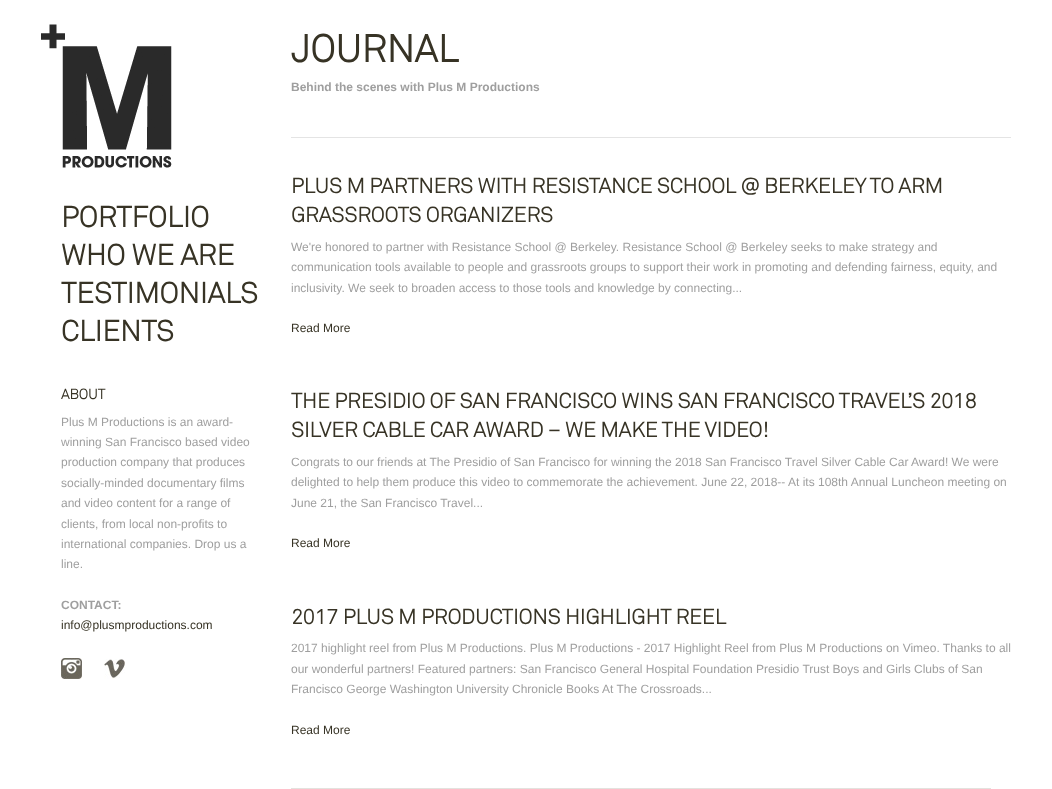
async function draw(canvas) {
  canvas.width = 1052
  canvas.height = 789
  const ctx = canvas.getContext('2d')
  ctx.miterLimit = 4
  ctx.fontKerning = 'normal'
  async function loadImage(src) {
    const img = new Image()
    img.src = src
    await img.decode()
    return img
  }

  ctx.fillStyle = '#fff'
  ctx.fillRect(0, 0, 1052, 789)
  ctx.drawImage(await loadImage('image0.png'), 41, 24, 131, 144)
  ctx.font = 'bold 28.75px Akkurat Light'
  ctx.fillStyle = '#373325'
  ctx.fillText('PORTFOLIO', 61, 227)
  ctx.fillText('WHO WE ARE', 61, 265)
  ctx.fillText('TESTIMONIALS', 61, 303)
  ctx.fillText('CLIENTS', 61, 341)
  ctx.font = 'bold 14px Akkurat Light'
  ctx.fillText('ABOUT', 61, 399)
  ctx.font = '12px Liberation Sans'
  ctx.fillStyle = '#9f9f9f'
  ctx.fillText('Plus M Productions is an award-', 61, 426)
  ctx.fillText('winning San Francisco based video', 61, 446)
  ctx.fillText('production company that produces', 61, 466)
  ctx.fillText('socially-minded documentary films', 61, 487)
  ctx.fillText('and video content for a range of', 61, 507)
  ctx.fillText('clients, from local non-profits to', 61, 528)
  ctx.fillText('international companies. Drop us a', 61, 548)
  ctx.fillText('line.', 61, 568)
  ctx.font = 'bold 12px Liberation Sans'
  ctx.fillText('CONTACT:', 61, 609)
  ctx.font = '12px Liberation Sans'
  ctx.fillStyle = '#373325'
  ctx.fillText('info@plusmproductions.com', 61, 629)
  ctx.drawImage(await loadImage('image1.png'), 61, 658, 21, 21)
  ctx.drawImage(await loadImage('image2.png'), 104, 659, 21, 20)
  ctx.fillStyle = '#e4e4e4'
  ctx.fillRect(291, 137, 720, 1)
  ctx.font = 'bold 38px Akkurat Light'
  ctx.fillStyle = '#373325'
  ctx.fillText('JOURNAL', 291, 62)
  ctx.font = 'bold 12px Liberation Sans'
  ctx.fillStyle = '#9f9f9f'
  ctx.fillText('Behind the scenes with Plus M Productions', 291, 91)
  ctx.font = 'bold 20.8px Akkurat Light'
  ctx.fillStyle = '#373325'
  ctx.fillText('PLUS M PARTNERS WITH RESISTANCE SCHOOL @ BERKELEY TO ARM', 291, 193)
  ctx.fillText('GRASSROOTS ORGANIZERS', 291, 222)
  ctx.font = '12px Liberation Sans'
  ctx.fillStyle = '#9f9f9f'
  ctx.fillText('We\'re honored to partner with Resistance School @ Berkeley. Resistance School @ Berkeley seeks to make strategy and', 291, 251)
  ctx.fillText('communication tools available to people and grassroots groups to support their work in promoting and defending fairness, equity, and', 291, 271)
  ctx.fillText('inclusivity. We seek to broaden access to those tools and knowledge by connecting...', 291, 292)
  ctx.fillStyle = '#373325'
  ctx.fillText('Read More', 291, 332)
  ctx.font = 'bold 20.8px Akkurat Light'
  ctx.fillText('THE PRESIDIO OF SAN FRANCISCO WINS SAN FRANCISCO TRAVEL’S 2018', 291, 408)
  ctx.fillText('SILVER CABLE CAR AWARD – WE MAKE THE VIDEO!', 291, 437)
  ctx.font = '12px Liberation Sans'
  ctx.fillStyle = '#9f9f9f'
  ctx.fillText('Congrats to our friends at The Presidio of San Francisco for winning the 2018 San Francisco Travel Silver Cable Car Award! We were', 291, 466)
  ctx.fillText('delighted to help them produce this video to commemorate the achievement. June 22, 2018-- At its 108th Annual Luncheon meeting on', 291, 486)
  ctx.fillText('June 21, the San Francisco Travel...', 291, 507)
  ctx.fillStyle = '#373325'
  ctx.fillText('Read More', 291, 547)
  ctx.font = 'bold 20.8px Akkurat Light'
  ctx.fillText('2017 PLUS M PRODUCTIONS HIGHLIGHT REEL', 291, 624)
  ctx.font = '12px Liberation Sans'
  ctx.fillStyle = '#9f9f9f'
  ctx.fillText('2017 highlight reel from Plus M Productions. Plus M Productions - 2017 Highlight Reel from Plus M Productions on Vimeo. Thanks to all', 291, 652)
  ctx.fillText('our wonderful partners! Featured partners: San Francisco General Hospital Foundation Presidio Trust Boys and Girls Clubs of San', 291, 673)
  ctx.fillText('Francisco George Washington University Chronicle Books At The Crossroads...', 291, 693)
  ctx.fillStyle = '#373325'
  ctx.fillText('Read More', 291, 734)
  ctx.fillStyle = '#e3e2de'
  ctx.fillRect(291, 788, 700, 1)
}

draw(document.querySelector('canvas'))
